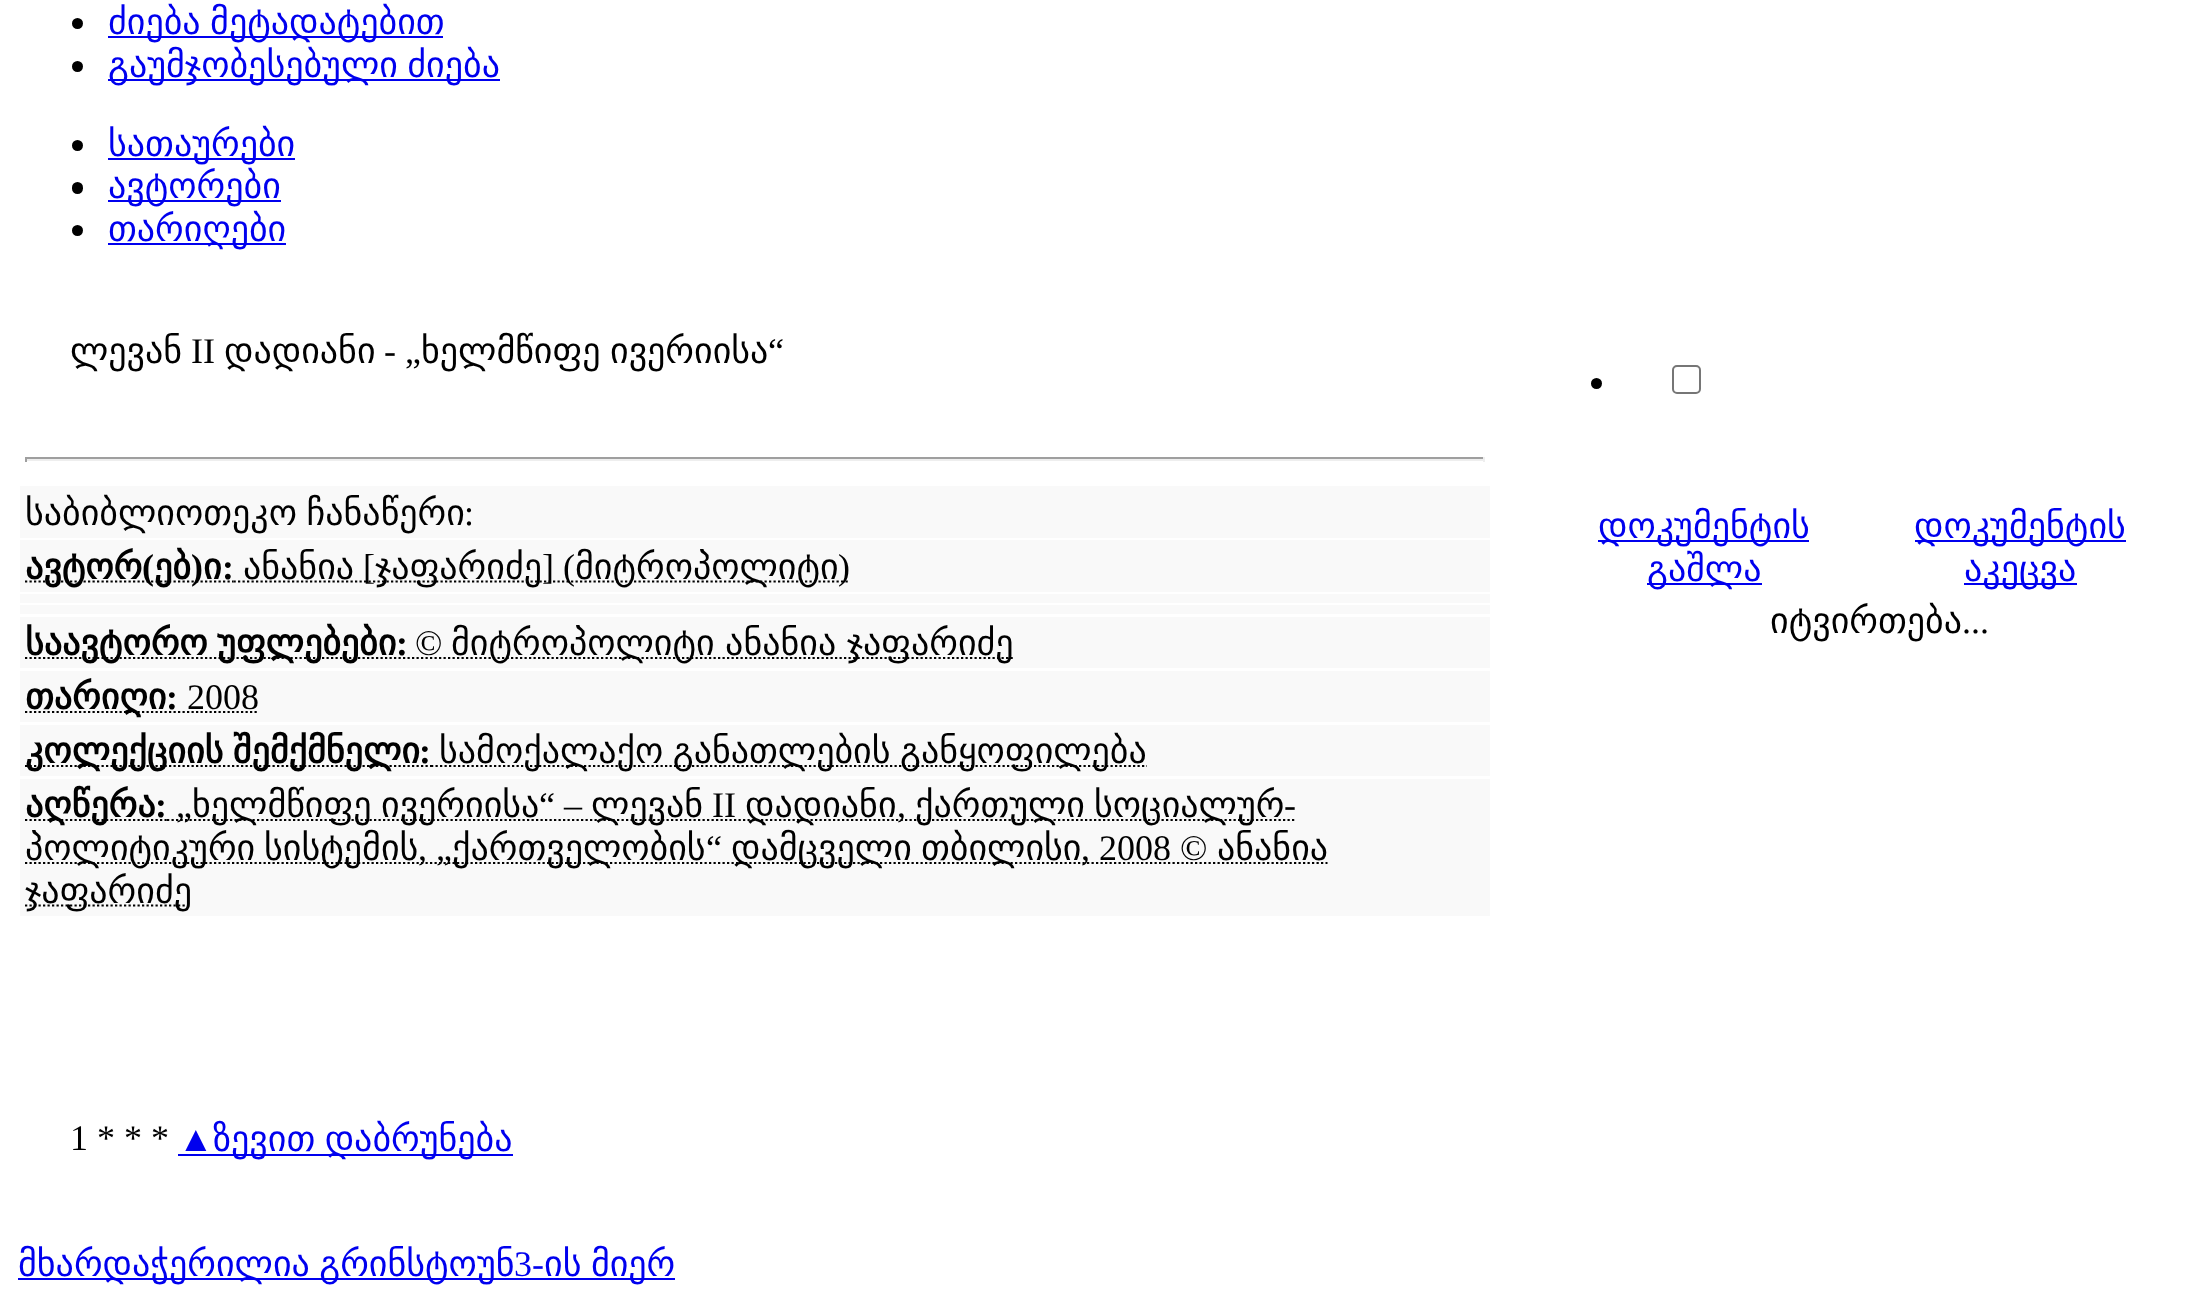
async function draw(canvas) {
  canvas.width = 2204
  canvas.height = 1302
  const ctx = canvas.getContext('2d')
  ctx.miterLimit = 4
  ctx.fontKerning = 'normal'

  ctx.fillStyle = '#fff'
  ctx.fillRect(0, 0, 2204, 1302)
  ctx.fillStyle = '#000'
  ctx.beginPath()
  ctx.arc(77.5, 23.5, 5.5, 0, 2 * Math.PI)
  ctx.fill()
  ctx.fillStyle = '#00e'
  ctx.fillRect(108, 36, 335, 2)
  ctx.wordSpacing = '-2px'
  ctx.font = '36px DejaVu Sans'
  ctx.fillText('ძიება მეტადატებით', 108, 34)
  ctx.fillStyle = '#000'
  ctx.beginPath()
  ctx.arc(77.5, 66.5, 5.5, 0, 2 * Math.PI)
  ctx.fill()
  ctx.fillStyle = '#00e'
  ctx.fillRect(108, 79, 392, 2)
  ctx.fillText('გაუმჯობესებული ძიება', 108, 77)
  ctx.fillStyle = '#000'
  ctx.beginPath()
  ctx.arc(77.5, 145.5, 5.5, 0, 2 * Math.PI)
  ctx.fill()
  ctx.fillStyle = '#00e'
  ctx.fillRect(108, 158, 187, 2)
  ctx.wordSpacing = '0px'
  ctx.fillText('სათაურები', 108, 156)
  ctx.fillStyle = '#000'
  ctx.beginPath()
  ctx.roundRect(72, 182, 11, 12, 5.5)
  ctx.fill()
  ctx.fillStyle = '#00e'
  ctx.fillRect(108, 200, 173, 2)
  ctx.fillText('ავტორები', 108, 198)
  ctx.fillStyle = '#000'
  ctx.beginPath()
  ctx.arc(77.5, 230.5, 5.5, 0, 2 * Math.PI)
  ctx.fill()
  ctx.fillStyle = '#00e'
  ctx.fillRect(108, 243, 178, 2)
  ctx.fillText('თარიღები', 108, 241)
  ctx.fillStyle = '#000'
  ctx.fillText('ლევან', 70, 363)
  ctx.font = '36px Liberation Serif'
  ctx.fillText('II', 191, 363)
  ctx.font = '36px DejaVu Sans'
  ctx.fillText('დადიანი', 224, 363)
  ctx.fillText('ხელმწიფე', 421, 363)
  ctx.fillText('ივერიისა', 610, 363)
  ctx.font = '36px Liberation Serif'
  ctx.fillText('“', 768, 363)
  ctx.fillText('- „', 384, 363)
  ctx.fillStyle = '#9f9f9f'
  ctx.fillRect(25, 457, 1460, 2)
  ctx.fillStyle = '#eee'
  ctx.fillRect(1483, 457, 2, 5)
  ctx.fillRect(25, 459, 1460, 2)
  ctx.fillStyle = '#9f9f9f'
  ctx.fillRect(25, 457, 2, 5)
  ctx.fillStyle = '#f9f9f9'
  ctx.fillRect(20, 486, 1470, 52)
  ctx.wordSpacing = '-2px'
  ctx.font = '36px DejaVu Sans'
  ctx.fillStyle = '#000'
  ctx.fillText('საბიბლიოთეკო ჩანაწერი', 25, 525)
  ctx.wordSpacing = '0px'
  ctx.font = '36px Liberation Serif'
  ctx.fillText(':', 464, 525)
  ctx.fillStyle = '#f9f9f9'
  ctx.fillRect(20, 540, 1470, 52)
  ctx.beginPath()
  ctx.moveTo(25, 581.5)
  ctx.lineTo(233.5, 581.5)
  ctx.strokeStyle = '#000'
  ctx.lineWidth = 2.2
  ctx.setLineDash([2.25, 2.25])
  ctx.stroke()
  ctx.font = 'bold 36px DejaVu Sans'
  ctx.fillStyle = '#000'
  ctx.fillText('ავტორ', 25, 579)
  ctx.font = 'bold 36px Liberation Serif'
  ctx.fillText('(', 142, 579)
  ctx.font = 'bold 36px DejaVu Sans'
  ctx.fillText('ებ', 154, 579)
  ctx.font = 'bold 36px Liberation Serif'
  ctx.fillText(')', 191, 579)
  ctx.font = 'bold 36px DejaVu Sans'
  ctx.fillText('ი', 203, 579)
  ctx.font = 'bold 36px Liberation Serif'
  ctx.fillText(':', 222, 579)
  ctx.font = '36px DejaVu Sans'
  ctx.fillText('ანანია', 243, 579)
  ctx.beginPath()
  ctx.moveTo(233.5, 581.5)
  ctx.lineTo(850, 581.5)
  ctx.stroke()
  ctx.font = '36px Liberation Serif'
  ctx.fillText('[', 363, 579)
  ctx.font = '36px DejaVu Sans'
  ctx.fillText('ჯაფარიძე', 375, 579)
  ctx.font = '36px Liberation Serif'
  ctx.fillText('] (', 542, 579)
  ctx.font = '36px DejaVu Sans'
  ctx.fillText('მიტროპოლიტი', 575, 579)
  ctx.font = '36px Liberation Serif'
  ctx.fillText(')', 838, 579)
  ctx.fillStyle = '#f9f9f9'
  ctx.fillRect(20, 594, 1470, 9)
  ctx.fillRect(20, 605, 1470, 9)
  ctx.fillRect(20, 617, 1470, 51)
  ctx.beginPath()
  ctx.moveTo(25, 658)
  ctx.lineTo(407.5, 658)
  ctx.stroke()
  ctx.wordSpacing = '-2px'
  ctx.font = 'bold 36px DejaVu Sans'
  ctx.fillStyle = '#000'
  ctx.fillText('საავტორო უფლებები', 25, 655)
  ctx.wordSpacing = '0px'
  ctx.font = 'bold 36px Liberation Serif'
  ctx.fillText(':', 396, 655)
  ctx.beginPath()
  ctx.moveTo(407.5, 658)
  ctx.lineTo(1013, 658)
  ctx.stroke()
  ctx.font = '36px Liberation Serif'
  ctx.fillText('©', 415, 655)
  ctx.wordSpacing = '-1px'
  ctx.font = '36px DejaVu Sans'
  ctx.fillText('მიტროპოლიტი ანანია ჯაფარიძე', 451, 655)
  ctx.fillStyle = '#f9f9f9'
  ctx.fillRect(20, 671, 1470, 51)
  ctx.beginPath()
  ctx.moveTo(25, 712)
  ctx.lineTo(178, 712)
  ctx.stroke()
  ctx.wordSpacing = '0px'
  ctx.font = 'bold 36px DejaVu Sans'
  ctx.fillStyle = '#000'
  ctx.fillText('თარიღი', 25, 709)
  ctx.font = 'bold 36px Liberation Serif'
  ctx.fillText(':', 166, 709)
  ctx.beginPath()
  ctx.moveTo(178, 712)
  ctx.lineTo(259, 712)
  ctx.stroke()
  ctx.font = '36px Liberation Serif'
  ctx.fillText('2008', 187, 709)
  ctx.fillStyle = '#f9f9f9'
  ctx.fillRect(20, 725, 1470, 51)
  ctx.beginPath()
  ctx.moveTo(25, 766)
  ctx.lineTo(431, 766)
  ctx.stroke()
  ctx.wordSpacing = '-2px'
  ctx.font = 'bold 36px DejaVu Sans'
  ctx.fillStyle = '#000'
  ctx.fillText('კოლექციის შემქმნელი', 25, 763)
  ctx.wordSpacing = '0px'
  ctx.font = 'bold 36px Liberation Serif'
  ctx.fillText(':', 419, 763)
  ctx.beginPath()
  ctx.moveTo(431, 766)
  ctx.lineTo(1147, 766)
  ctx.stroke()
  ctx.wordSpacing = '-2px'
  ctx.font = '36px DejaVu Sans'
  ctx.fillText('სამოქალაქო განათლების განყოფილება', 439, 763)
  ctx.fillStyle = '#f9f9f9'
  ctx.fillRect(20, 779, 1470, 137)
  ctx.beginPath()
  ctx.moveTo(25, 820)
  ctx.lineTo(167, 820)
  ctx.stroke()
  ctx.wordSpacing = '0px'
  ctx.font = 'bold 36px DejaVu Sans'
  ctx.fillStyle = '#000'
  ctx.fillText('აღწერა', 25, 817)
  ctx.font = 'bold 36px Liberation Serif'
  ctx.fillText(':', 155, 817)
  ctx.beginPath()
  ctx.moveTo(167, 820)
  ctx.lineTo(1296, 820)
  ctx.stroke()
  ctx.font = '36px DejaVu Sans'
  ctx.fillText('ხელმწიფე', 192, 817)
  ctx.fillText('ივერიისა', 381, 817)
  ctx.font = '36px Liberation Serif'
  ctx.fillText('“ –', 539, 817)
  ctx.font = '36px DejaVu Sans'
  ctx.fillText('ლევან', 591, 817)
  ctx.font = '36px Liberation Serif'
  ctx.fillText('II', 712, 817)
  ctx.font = '36px DejaVu Sans'
  ctx.fillText('დადიანი', 745, 817)
  ctx.fillText('ქართული', 915, 817)
  ctx.fillText('სოციალურ', 1094, 817)
  ctx.font = '36px Liberation Serif'
  ctx.fillText('-', 1284, 817)
  ctx.fillText('„', 176, 817)
  ctx.fillText(',', 897, 817)
  ctx.beginPath()
  ctx.moveTo(25, 863)
  ctx.lineTo(1327.5, 863)
  ctx.stroke()
  ctx.font = '36px DejaVu Sans'
  ctx.fillText('პოლიტიკური', 25, 860)
  ctx.fillText('სისტემის', 264, 860)
  ctx.font = '36px Liberation Serif'
  ctx.fillText(', „', 418, 860)
  ctx.font = '36px DejaVu Sans'
  ctx.fillText('ქართველობის', 452, 860)
  ctx.font = '36px Liberation Serif'
  ctx.fillText('“', 706, 860)
  ctx.font = '36px DejaVu Sans'
  ctx.fillText('დამცველი', 731, 860)
  ctx.fillText('თბილისი', 921, 860)
  ctx.font = '36px Liberation Serif'
  ctx.fillText(', 2008 ©', 1081, 860)
  ctx.font = '36px DejaVu Sans'
  ctx.fillText('ანანია', 1217, 860)
  ctx.beginPath()
  ctx.moveTo(25, 905.5)
  ctx.lineTo(191.5, 905.5)
  ctx.stroke()
  ctx.fillText('ჯაფარიძე', 25, 903)
  ctx.font = '36px Liberation Serif'
  ctx.fillText('1 * * *', 70, 1150)
  ctx.fillStyle = '#00e'
  ctx.fillText('▲', 178, 1151)
  ctx.fillRect(178, 1154, 335, 2)
  ctx.wordSpacing = '-2px'
  ctx.font = '36px DejaVu Sans'
  ctx.fillText('ზევით დაბრუნება', 213, 1151)
  ctx.fillStyle = '#000'
  ctx.beginPath()
  ctx.arc(1596.5, 383.5, 5.5, 0, 2 * Math.PI)
  ctx.fill()
  ctx.beginPath()
  ctx.roundRect(1673, 366, 27, 27, 4)
  ctx.strokeStyle = '#767676'
  ctx.lineWidth = 2
  ctx.setLineDash([])
  ctx.stroke()
  ctx.fillStyle = '#00e'
  ctx.fillRect(1598, 540, 211, 2)
  ctx.wordSpacing = '0px'
  ctx.fillText('დოკუმენტის', 1598, 538)
  ctx.fillRect(1647, 583, 115, 2)
  ctx.fillText('გაშლა', 1647, 581)
  ctx.fillRect(1915, 540, 211, 2)
  ctx.fillText('დოკუმენტის', 1914, 538)
  ctx.fillRect(1964, 583, 113, 2)
  ctx.fillText('აკეცვა', 1964, 581)
  ctx.fillStyle = '#000'
  ctx.fillText('იტვირთება', 1770, 633)
  ctx.font = '36px Liberation Serif'
  ctx.fillText('...', 1962, 633)
  ctx.fillStyle = '#00e'
  ctx.fillRect(18, 1278, 657, 2)
  ctx.wordSpacing = '-2px'
  ctx.font = '36px DejaVu Sans'
  ctx.fillText('მხარდაჭერილია გრინსტოუნ', 18, 1276)
  ctx.wordSpacing = '0px'
  ctx.font = '36px Liberation Serif'
  ctx.fillText('3-', 514, 1276)
  ctx.wordSpacing = '-2px'
  ctx.font = '36px DejaVu Sans'
  ctx.fillText('ის მიერ', 544, 1276)
}

draw(document.querySelector('canvas'))
